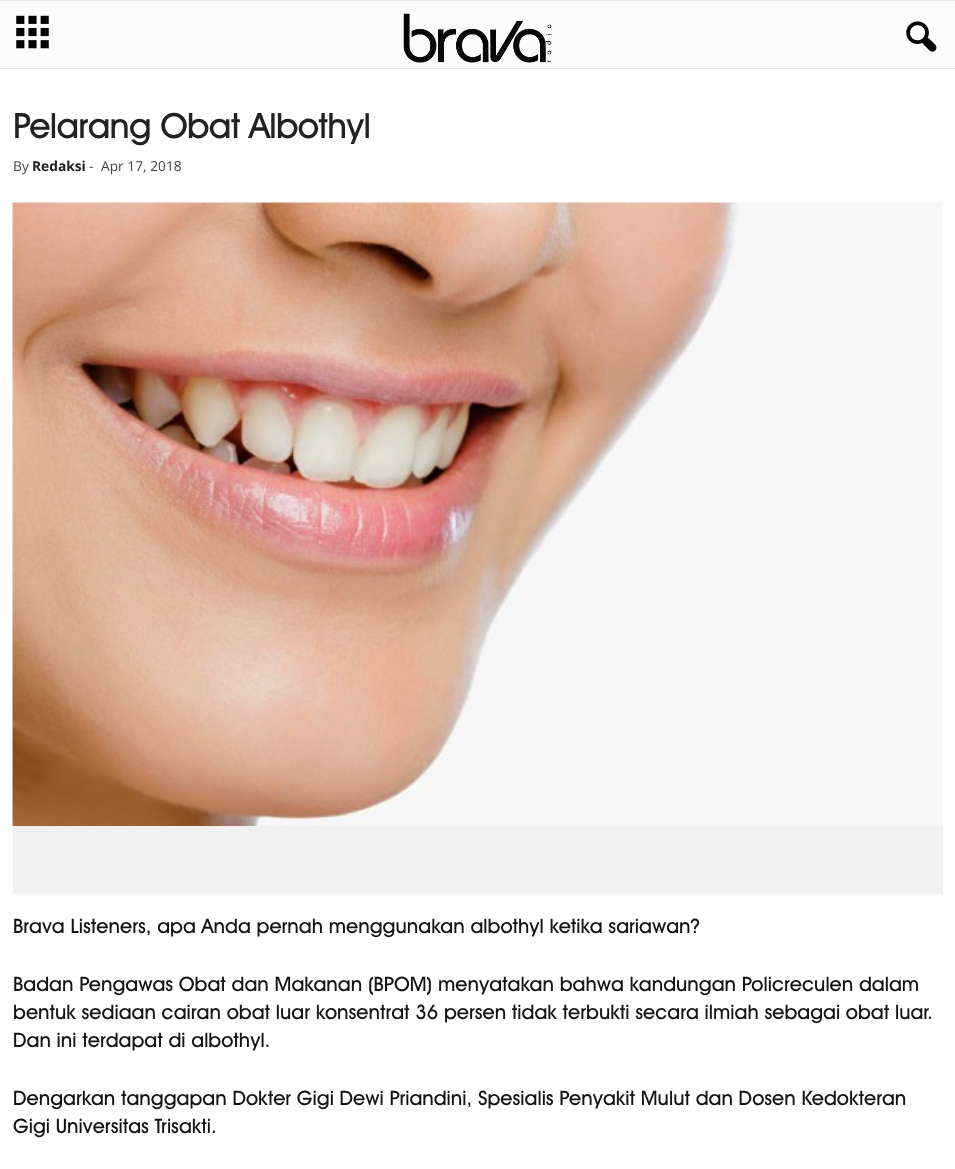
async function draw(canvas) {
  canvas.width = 955
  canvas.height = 1169
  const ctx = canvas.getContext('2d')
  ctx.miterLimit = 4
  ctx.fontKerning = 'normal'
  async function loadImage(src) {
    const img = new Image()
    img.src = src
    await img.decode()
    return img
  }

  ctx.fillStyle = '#fff'
  ctx.fillRect(0, 0, 955, 1169)
  ctx.fillStyle = '#fcfcfc'
  ctx.fillRect(0, 1, 955, 67)
  ctx.fillStyle = '#e6e6e6'
  ctx.fillRect(0, 0, 955, 1)
  ctx.fillRect(0, 68, 955, 1)
  ctx.drawImage(await loadImage('image0.png'), 16, 15, 33, 34)
  ctx.drawImage(await loadImage('image1.png'), 403, 13, 149, 50)
  ctx.drawImage(await loadImage('image2.png'), 906, 21, 31, 31)
  ctx.letterSpacing = '-0.7px'
  ctx.font = '500 35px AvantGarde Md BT'
  ctx.fillStyle = '#222'
  ctx.fillText('Pelarang Obat Albothyl', 13, 138)
  ctx.letterSpacing = '0px'
  ctx.font = '13.75px Open Sans'
  ctx.fillStyle = '#444'
  ctx.fillText('By', 13, 171)
  ctx.font = 'bold 13.75px Open Sans'
  ctx.fillStyle = '#222'
  ctx.fillText('Redaksi', 32, 171)
  ctx.font = '13.75px Open Sans'
  ctx.fillStyle = '#444'
  ctx.fillText('-', 89, 171)
  ctx.fillText('Apr 17, 2018', 101, 171)
  ctx.drawImage(await loadImage('image3.png'), 12, 202, 931, 625)
  ctx.fillStyle = '#f1f1f1'
  ctx.fillRect(13, 826, 930, 68)
  ctx.font = '500 20px AvantGarde Md BT'
  ctx.fillStyle = '#141414'
  ctx.fillText('Brava Listeners, apa Anda pernah menggunakan albothyl ketika sariawan?', 13, 933)
  ctx.fillText('Badan Pengawas Obat dan Makanan (BPOM) menyatakan bahwa kandungan Policreculen dalam', 13, 991)
  ctx.fillText('bentuk sediaan cairan obat luar konsentrat 36 persen tidak terbukti secara ilmiah sebagai obat luar.', 13, 1019)
  ctx.fillText('Dan ini terdapat di albothyl.', 13, 1047)
  ctx.fillText('Dengarkan tanggapan Dokter Gigi Dewi Priandini, Spesialis Penyakit Mulut dan Dosen Kedokteran', 13, 1105)
  ctx.fillText('Gigi Universitas Trisakti.', 13, 1133)
}

draw(document.querySelector('canvas'))
